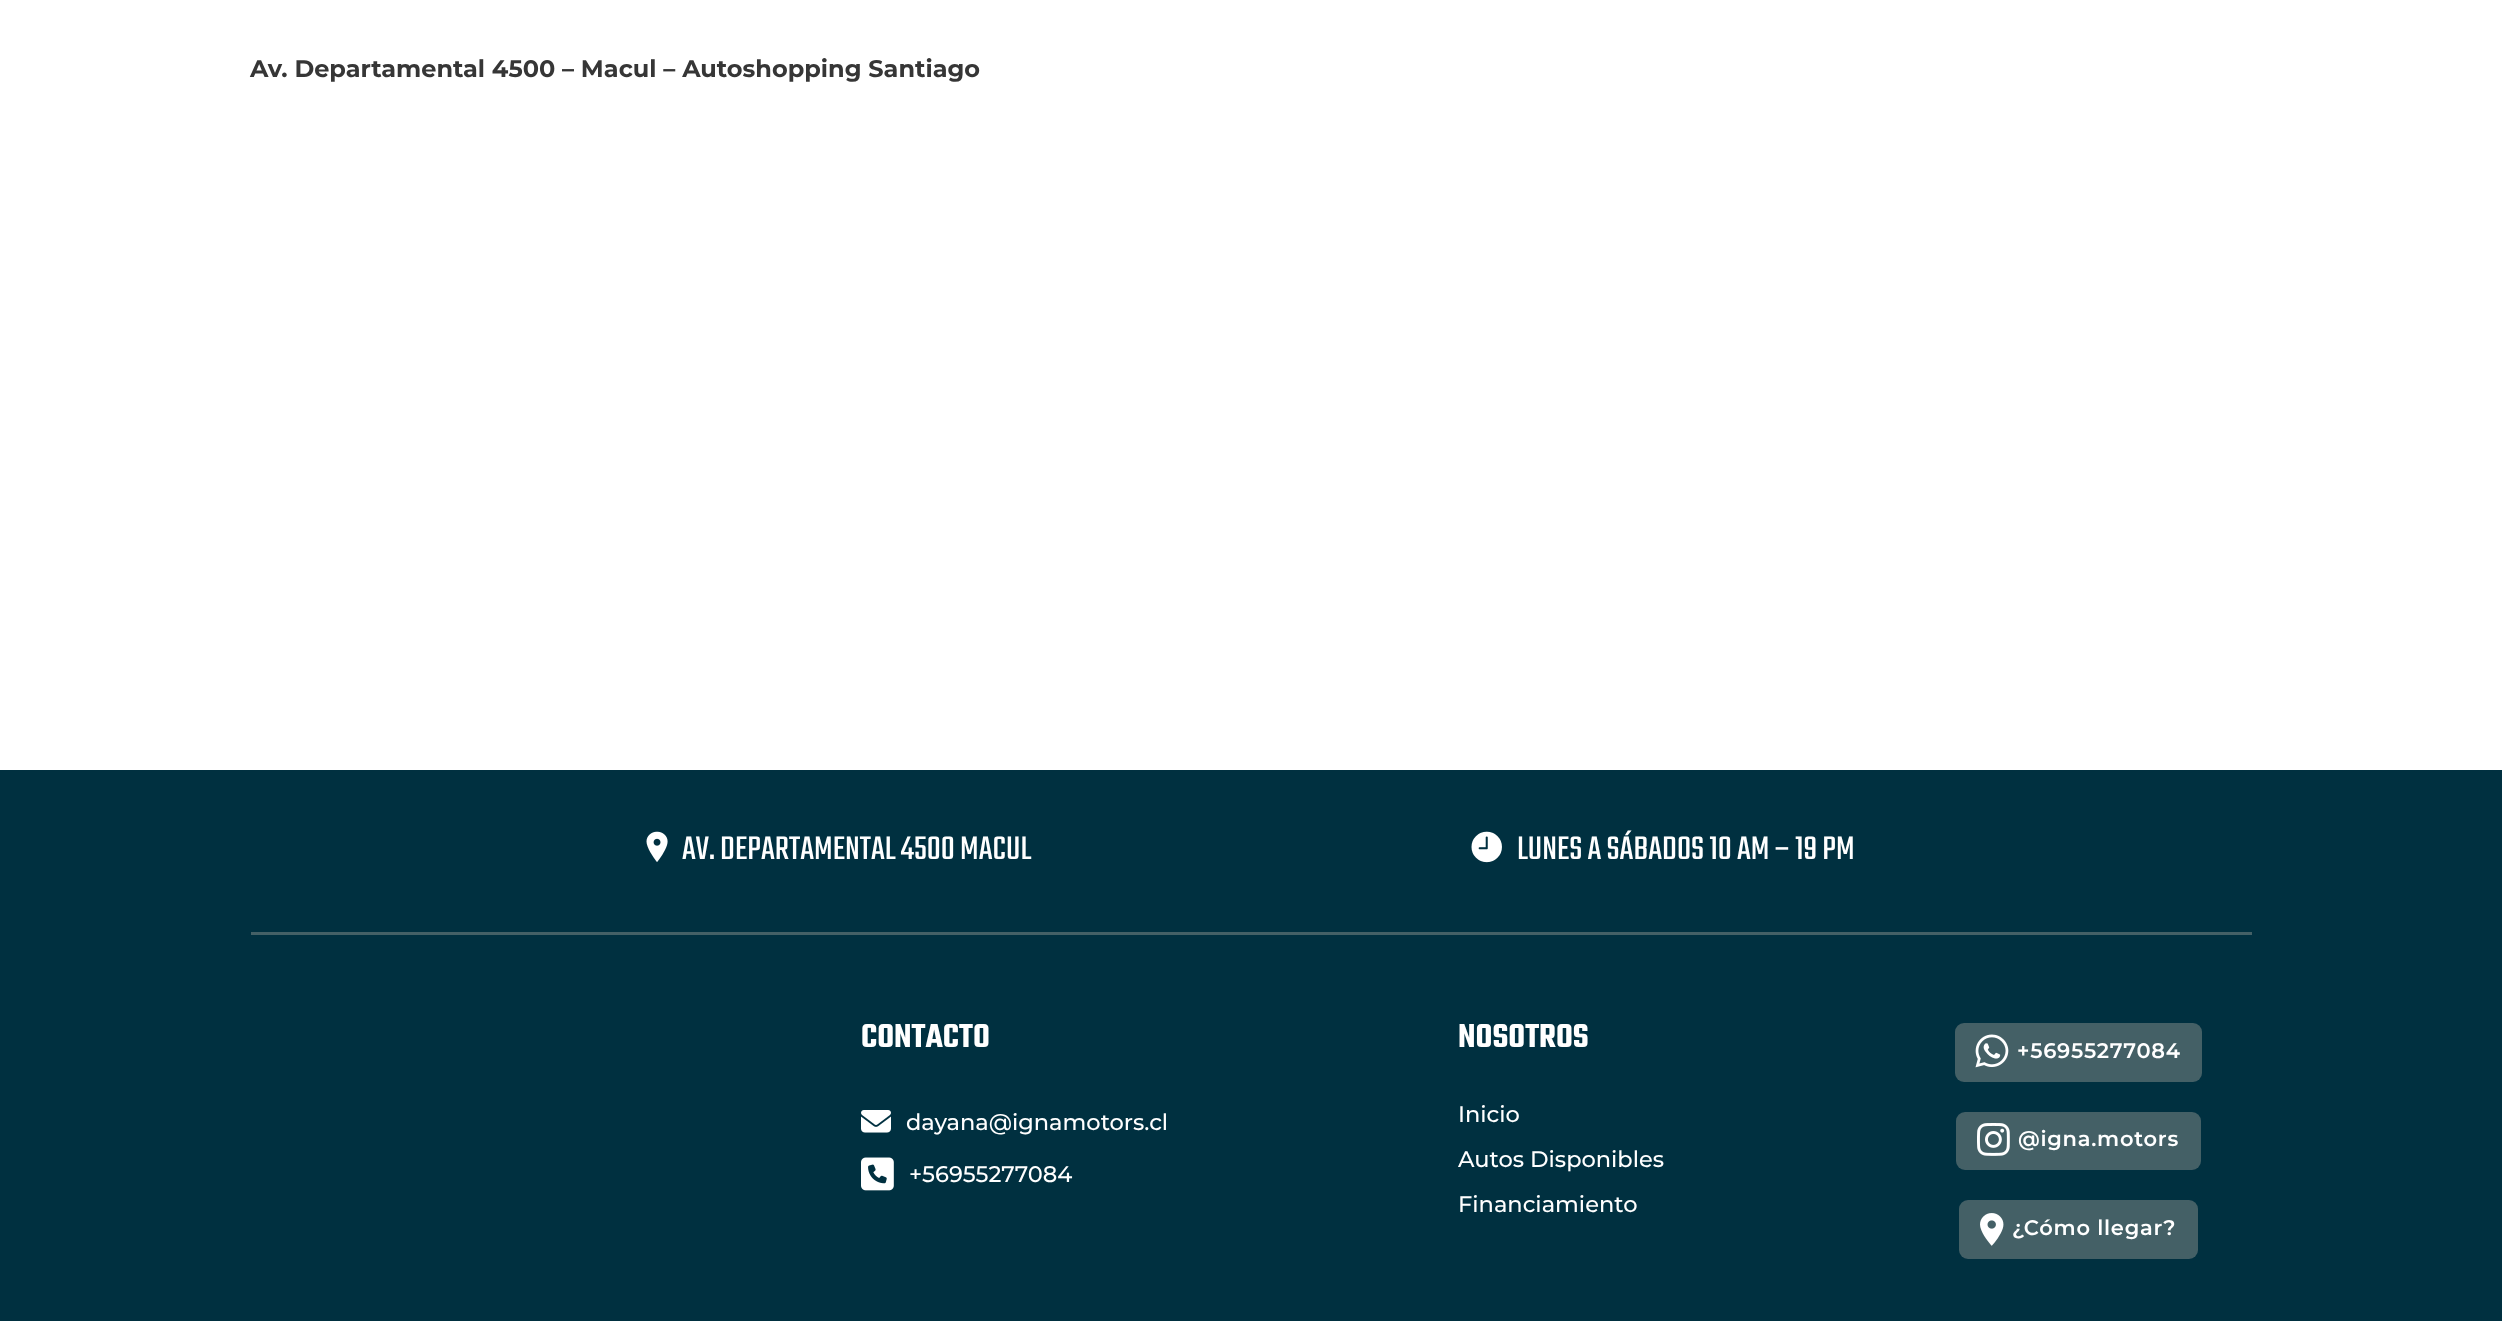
async function draw(canvas) {
  canvas.width = 2502
  canvas.height = 1321
  const ctx = canvas.getContext('2d')
  ctx.miterLimit = 4
  ctx.fontKerning = 'normal'
  async function loadImage(src) {
    const img = new Image()
    img.src = src
    await img.decode()
    return img
  }

  ctx.fillStyle = '#fff'
  ctx.fillRect(0, 0, 2502, 1321)
  ctx.font = 'bold 24px Montserrat'
  ctx.fillStyle = '#363636'
  ctx.fillText('Av. Departamental 4500 – Macul – Autoshopping Santiago', 250, 77)
  ctx.fillStyle = '#003040'
  ctx.fillRect(0, 770, 2502, 551)
  ctx.drawImage(await loadImage('image0.png'), 646, 831, 22, 31)
  ctx.font = '36px Teko'
  ctx.fillStyle = '#fff'
  ctx.fillText('AV. DEPARTAMENTAL 4500 MACUL', 682, 859)
  ctx.drawImage(await loadImage('image1.png'), 1471, 831, 31, 32)
  ctx.fillText('LUNES A SÁBADOS 10 AM – 19 PM', 1517, 859)
  ctx.fillStyle = '#446066'
  ctx.fillRect(251, 932, 2001, 3)
  ctx.font = '600 36px Teko'
  ctx.fillStyle = '#fff'
  ctx.fillText('CONTACTO', 861, 1047)
  ctx.drawImage(await loadImage('image2.png'), 861, 1110, 30, 23)
  ctx.font = '500 22.5px Montserrat'
  ctx.fillText('dayana@ignamotors.cl', 906, 1130)
  ctx.drawImage(await loadImage('image3.png'), 861, 1157, 33, 34)
  ctx.fillText('+56955277084', 909, 1182)
  ctx.font = '600 36px Teko'
  ctx.fillText('NOSOTROS', 1458, 1047)
  ctx.font = '500 22.5px Montserrat'
  ctx.fillText('Inicio', 1458, 1122)
  ctx.fillText('Autos Disponibles', 1458, 1167)
  ctx.fillText('Financiamiento', 1458, 1212)
  ctx.fillStyle = '#446066'
  ctx.beginPath()
  ctx.roundRect(1955, 1023, 247, 59, 9)
  ctx.fill()
  ctx.drawImage(await loadImage('image4.png'), 1975, 1034, 34, 34)
  ctx.letterSpacing = '0.75px'
  ctx.font = '600 21px Montserrat'
  ctx.fillStyle = '#fff'
  ctx.fillText('+56955277084', 2017, 1058)
  ctx.fillStyle = '#446066'
  ctx.beginPath()
  ctx.roundRect(1956, 1112, 245, 58, 9)
  ctx.fill()
  ctx.drawImage(await loadImage('image5.png'), 1977, 1123, 33, 33)
  ctx.fillStyle = '#fff'
  ctx.fillText('@igna.motors', 2018, 1146)
  ctx.fillStyle = '#446066'
  ctx.beginPath()
  ctx.roundRect(1959, 1200, 239, 59, 9)
  ctx.fill()
  ctx.drawImage(await loadImage('image6.png'), 1980, 1213, 24, 33)
  ctx.fillStyle = '#fff'
  ctx.fillText('¿Cómo llegar?', 2012, 1235)
}

draw(document.querySelector('canvas'))
